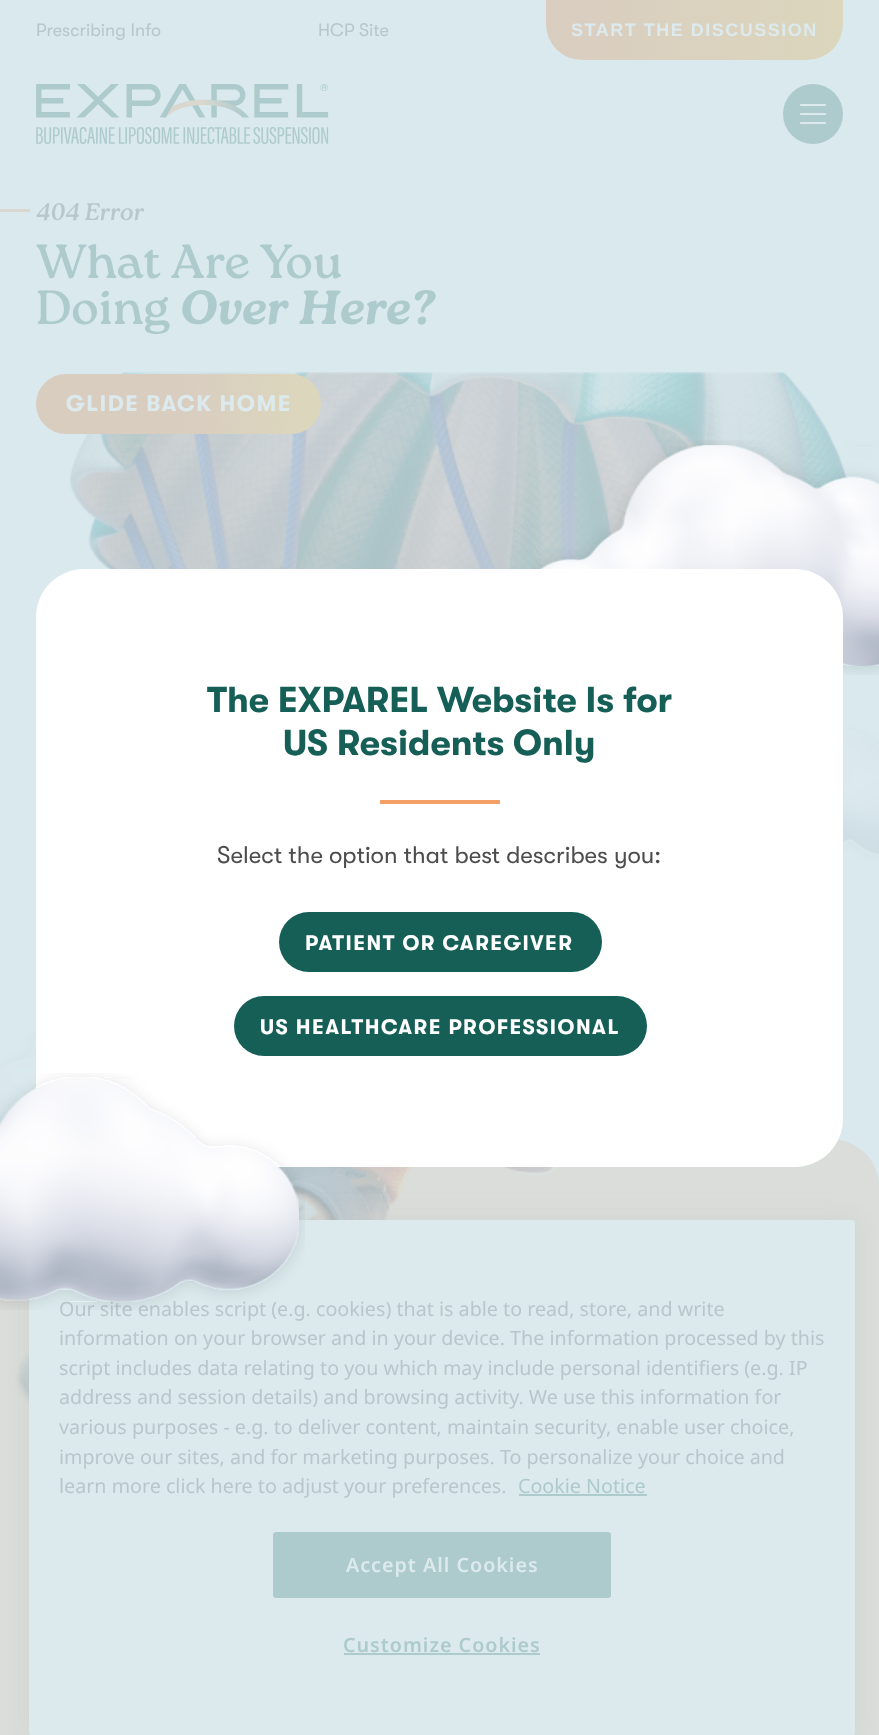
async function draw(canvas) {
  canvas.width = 879
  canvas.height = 1735
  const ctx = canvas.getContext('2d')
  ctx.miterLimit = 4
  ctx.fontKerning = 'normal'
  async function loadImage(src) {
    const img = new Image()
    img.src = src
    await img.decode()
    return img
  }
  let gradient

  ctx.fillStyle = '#d9e9ed'
  ctx.fillRect(0, 0, 879, 1735)
  ctx.font = '18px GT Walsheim'
  ctx.fillStyle = '#b8c7cb'
  ctx.fillText('Prescribing Info', 36, 36)
  ctx.fillText('HCP Site', 318, 36)
  gradient = ctx.createLinearGradient(546, 30, 843, 30)
  gradient.addColorStop(0, '#d9cdc0')
  gradient.addColorStop(1, '#dcd6bd')
  ctx.fillStyle = gradient
  ctx.beginPath()
  ctx.roundRect(546, 0, 297, 60, [0, 0, 36, 36])
  ctx.fill()
  ctx.letterSpacing = '1.5px'
  ctx.font = 'bold 18px Liberation Sans'
  ctx.fillStyle = '#dceaee'
  ctx.fillText('START THE DISCUSSION', 571, 36)
  ctx.drawImage(await loadImage('image0.png'), 36, 84, 293, 60)
  ctx.fillStyle = '#adcacd'
  ctx.beginPath()
  ctx.arc(813, 114, 30, 0, 2 * Math.PI)
  ctx.fill()
  ctx.beginPath()
  ctx.moveTo(801, 105)
  ctx.lineTo(825, 105)
  ctx.moveTo(801, 114)
  ctx.lineTo(825, 114)
  ctx.moveTo(801, 123)
  ctx.lineTo(825, 123)
  ctx.strokeStyle = '#dceaee'
  ctx.lineWidth = 2.2
  ctx.lineCap = 'round'
  ctx.stroke()
  ctx.fillStyle = '#dad7cf'
  ctx.fillRect(0, 209, 30, 3)
  ctx.letterSpacing = '0px'
  ctx.font = 'italic 24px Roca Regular'
  ctx.fillStyle = '#b8c7cb'
  ctx.fillText('404 Error', 36, 220)
  ctx.font = '48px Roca'
  ctx.fillStyle = '#adcacd'
  ctx.fillText('What Are You', 36, 278)
  ctx.fillText('Doing', 36, 324)
  ctx.font = 'italic 900 48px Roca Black'
  ctx.fillText('Over Here?', 180, 324)
  ctx.drawImage(await loadImage('image2.png'), 843, 727, 36, 134)
  ctx.fillStyle = '#daddd9'
  ctx.beginPath()
  ctx.roundRect(0, 1139, 879, 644, 48)
  ctx.fill()
  ctx.drawImage(await loadImage('image1.png'), 15, 372, 833, 1034)
  gradient = ctx.createLinearGradient(35, 423, 322, 384)
  gradient.addColorStop(0.52, '#d9cdc0')
  gradient.addColorStop(0.9, '#dcd6bd')
  ctx.fillStyle = gradient
  ctx.beginPath()
  ctx.roundRect(36, 374, 285, 60, 30)
  ctx.fill()
  ctx.letterSpacing = '1.5px'
  ctx.font = 'bold 22.5px GT Walsheim'
  ctx.fillStyle = '#dceaee'
  ctx.fillText('GLIDE BACK HOME', 66, 411)
  ctx.drawImage(await loadImage('image3.png'), 0, 1030, 278, 138)
  ctx.drawImage(await loadImage('image4.png'), 532, 440, 347, 235)
  ctx.fillStyle = '#fff'
  ctx.beginPath()
  ctx.roundRect(36, 569, 807, 598, 48)
  ctx.fill()
  ctx.letterSpacing = '0px'
  ctx.font = 'bold 36px GT Walsheim'
  ctx.fillStyle = '#165f57'
  ctx.fillText('The EXPAREL Website Is for', 207, 712)
  ctx.fillText('US Residents Only', 283, 755)
  ctx.fillStyle = '#f49f65'
  ctx.fillRect(380, 800, 120, 4)
  ctx.font = '24px GT Walsheim'
  ctx.fillStyle = '#4d4d4d'
  ctx.fillText('Select the option that best describes you:', 217, 863)
  ctx.fillStyle = '#165f57'
  ctx.beginPath()
  ctx.roundRect(279, 912, 323, 60, 30)
  ctx.fill()
  ctx.letterSpacing = '1.5px'
  ctx.font = 'bold 21px GT Walsheim'
  ctx.fillStyle = '#fff'
  ctx.fillText('PATIENT OR CAREGIVER', 305, 950)
  ctx.fillStyle = '#165f57'
  ctx.beginPath()
  ctx.roundRect(234, 996, 413, 60, 30)
  ctx.fill()
  ctx.fillStyle = '#fff'
  ctx.fillText('US HEALTHCARE PROFESSIONAL', 260, 1034)
  ctx.fillStyle = '#a9b7bb33'
  ctx.filter = 'blur(13.5px)'
  ctx.beginPath()
  ctx.roundRect(29, 1220, 826, 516, 4)
  ctx.fill()
  ctx.filter = 'none'
  ctx.fillStyle = '#dceaee'
  ctx.beginPath()
  ctx.roundRect(29, 1220, 826, 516, 4)
  ctx.fill()
  ctx.letterSpacing = '0px'
  ctx.font = '19.7px Noto Sans'
  ctx.fillStyle = '#b8c7cb'
  ctx.fillText('Our site enables script (e.g. cookies) that is able to read, store, and write', 59, 1316)
  ctx.drawImage(await loadImage('image5.png'), 0, 1073, 305, 237)
  ctx.fillText('information on your browser and in your device. The information processed by this', 59, 1345)
  ctx.fillText('script includes data relating to you which may include personal identifiers (e.g. IP', 59, 1375)
  ctx.fillText('address and session details) and browsing activity. We use this information for', 59, 1404)
  ctx.fillText('various purposes - e.g. to deliver content, maintain security, enable user choice,', 59, 1434)
  ctx.fillText('improve our sites, and for marketing purposes. To personalize your choice and', 59, 1464)
  ctx.fillText('learn more click here to adjust your preferences.', 59, 1493)
  ctx.fillStyle = '#adcacd'
  ctx.fillText('Cookie Notice', 518, 1493)
  ctx.fillRect(519, 1494, 128, 2)
  ctx.beginPath()
  ctx.roundRect(274, 1533, 336, 64, 2)
  ctx.fill()
  ctx.strokeStyle = '#adcacd'
  ctx.lineWidth = 2
  ctx.stroke()
  ctx.letterSpacing = '1px'
  ctx.font = '600 19.7px Noto Sans'
  ctx.fillStyle = '#dceaee'
  ctx.fillText('Accept All Cookies', 346, 1572)
  ctx.fillStyle = '#adcacd'
  ctx.fillText('Customize Cookies', 343, 1652)
  ctx.fillRect(344, 1653, 196, 2)
}

draw(document.querySelector('canvas'))
